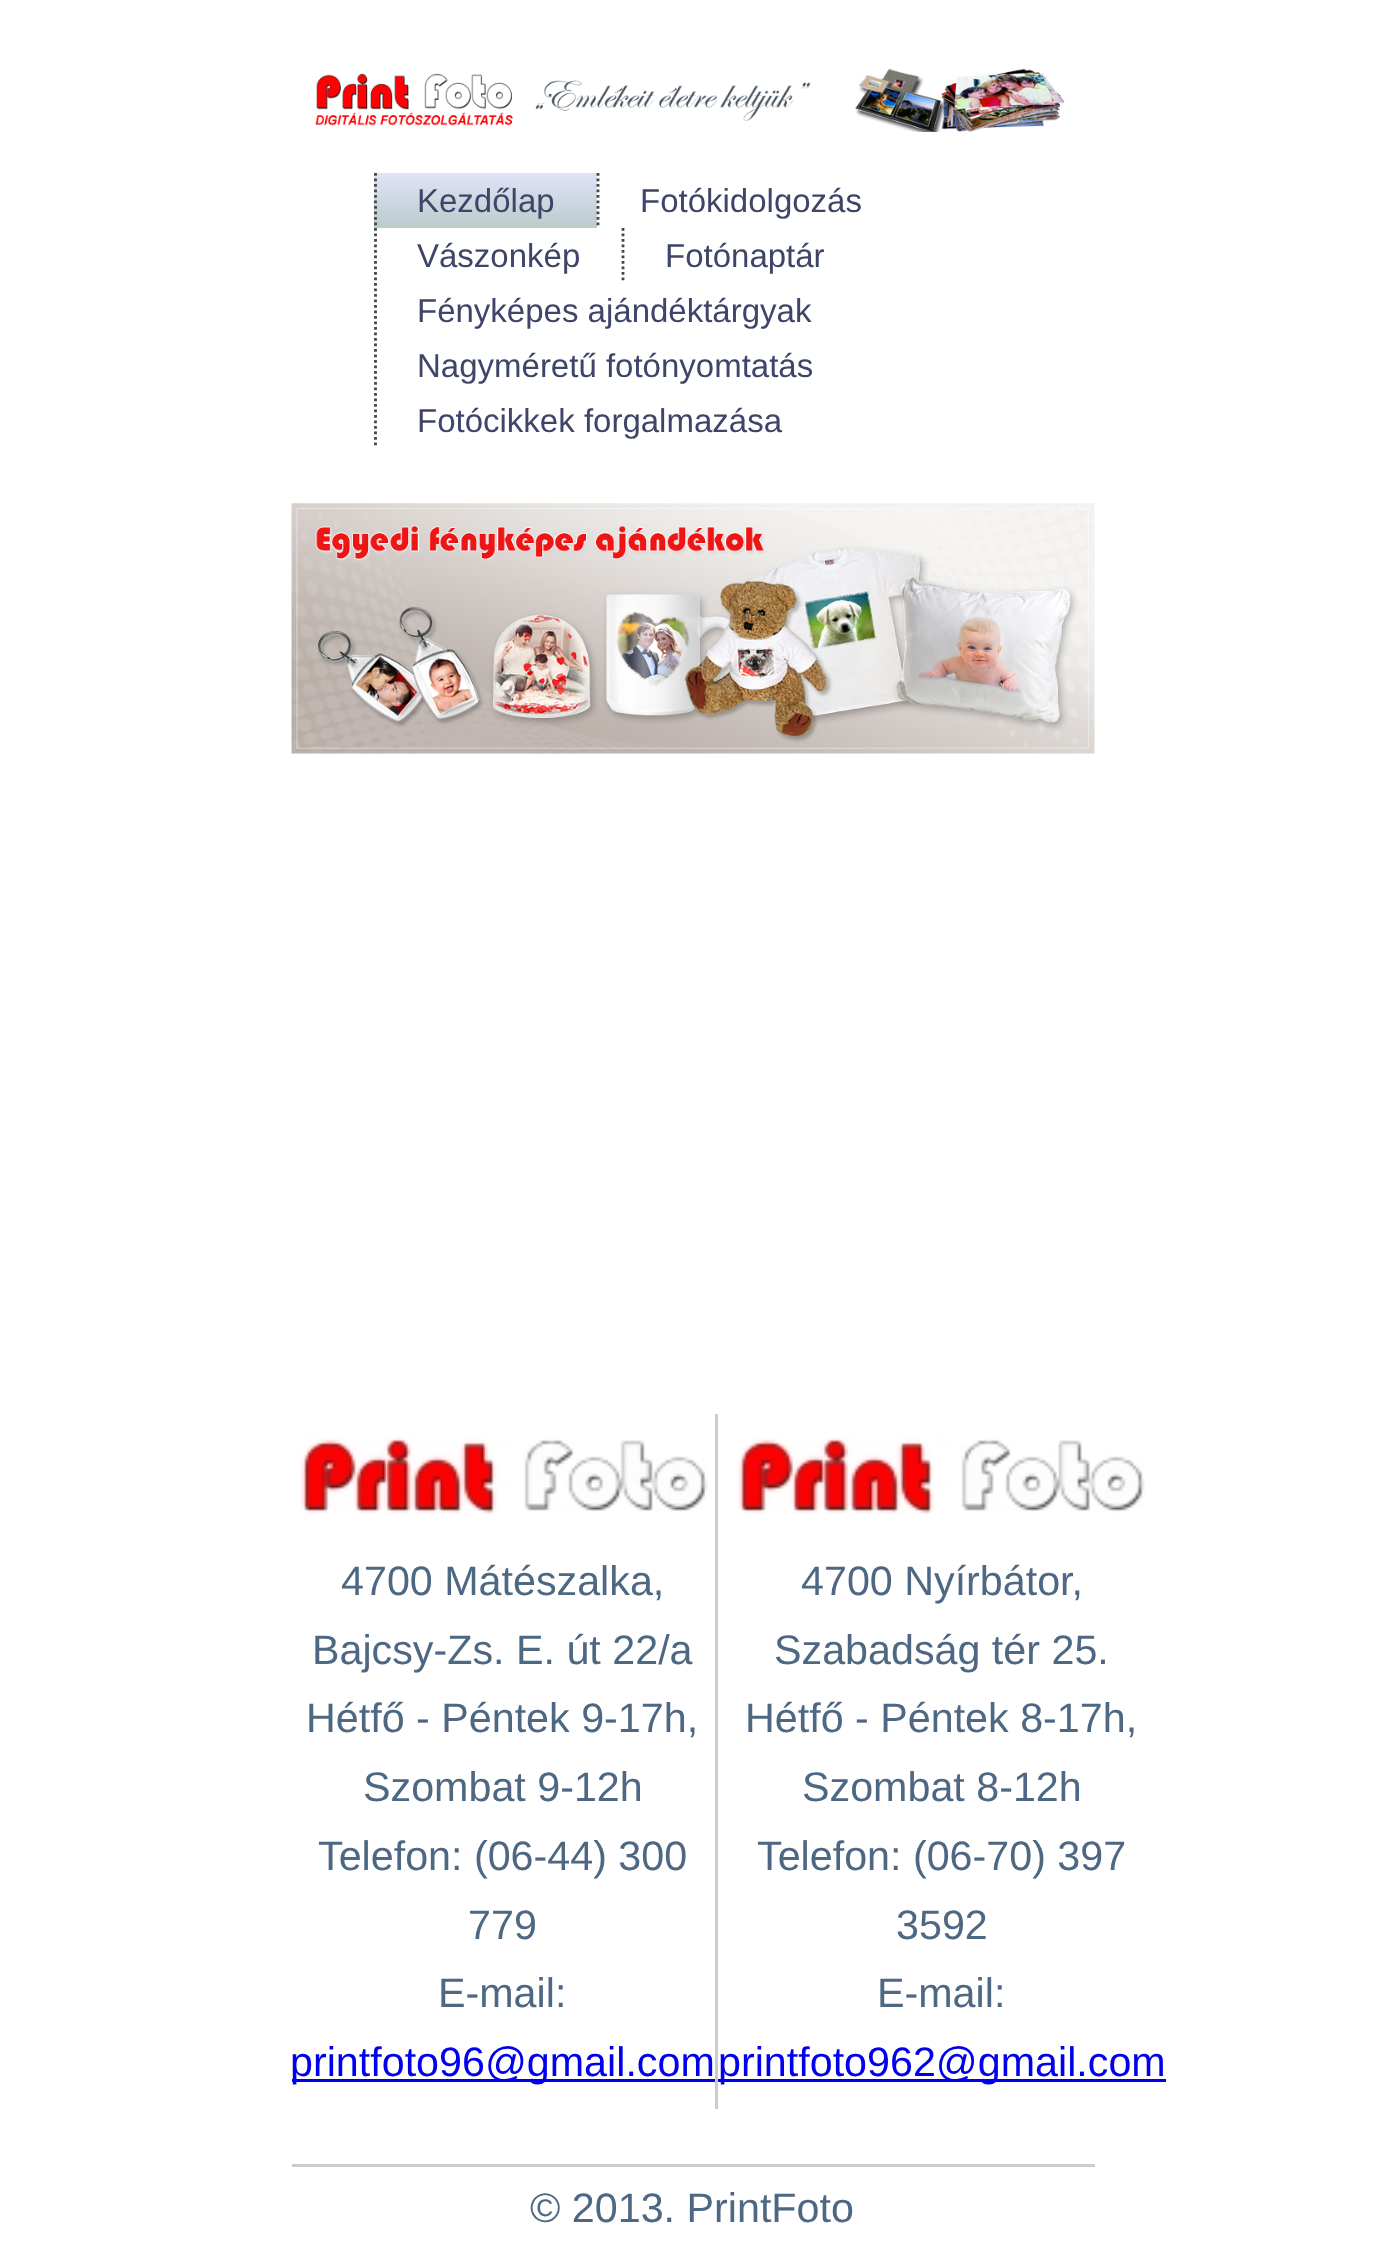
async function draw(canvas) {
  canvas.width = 1382
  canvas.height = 2267
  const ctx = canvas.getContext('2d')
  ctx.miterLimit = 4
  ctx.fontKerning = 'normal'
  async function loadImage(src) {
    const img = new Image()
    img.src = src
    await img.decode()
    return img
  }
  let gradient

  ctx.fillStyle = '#fff'
  ctx.fillRect(0, 0, 1382, 2267)
  ctx.drawImage(await loadImage('image0.png'), 315, 68, 750, 64)
  gradient = ctx.createLinearGradient(377, 228, 377, 173)
  gradient.addColorStop(0, '#bacccc')
  gradient.addColorStop(1, '#e1e3f7')
  ctx.fillStyle = gradient
  ctx.fillRect(374, 173, 223, 55)
  ctx.beginPath()
  ctx.moveTo(375.5, 173)
  ctx.lineTo(375.5, 228)
  ctx.strokeStyle = '#454545'
  ctx.lineWidth = 2.8
  ctx.setLineDash([2.75, 2.75])
  ctx.stroke()
  ctx.font = '33px Liberation Sans'
  ctx.fillStyle = '#3f4569'
  ctx.fillText('Kezdőlap', 417, 212)
  ctx.beginPath()
  ctx.moveTo(598, 173)
  ctx.lineTo(598, 228)
  ctx.stroke()
  ctx.fillText('Fotókidolgozás', 640, 212)
  ctx.beginPath()
  ctx.moveTo(375.5, 228)
  ctx.lineTo(375.5, 283)
  ctx.stroke()
  ctx.fillText('Vászonkép', 417, 267)
  ctx.beginPath()
  ctx.moveTo(623, 228)
  ctx.lineTo(623, 283)
  ctx.stroke()
  ctx.fillText('Fotónaptár', 665, 267)
  ctx.beginPath()
  ctx.moveTo(375.5, 283)
  ctx.lineTo(375.5, 338)
  ctx.stroke()
  ctx.fillText('Fényképes ajándéktárgyak', 417, 322)
  ctx.beginPath()
  ctx.moveTo(375.5, 338)
  ctx.lineTo(375.5, 393)
  ctx.stroke()
  ctx.fillText('Nagyméretű fotónyomtatás', 417, 377)
  ctx.beginPath()
  ctx.moveTo(375.5, 393)
  ctx.lineTo(375.5, 448)
  ctx.stroke()
  ctx.fillText('Fotócikkek forgalmazása', 417, 432)
  ctx.drawImage(await loadImage('image1.png'), 291, 503, 804, 251)
  ctx.drawImage(await loadImage('image2.png'), 300, 1437, 408, 77)
  ctx.font = '41.25px Liberation Sans'
  ctx.fillStyle = '#4e6883'
  ctx.fillText('4700 Mátészalka,', 341, 1595)
  ctx.fillText('Bajcsy-Zs. E. út 22/a', 312, 1664)
  ctx.fillText('Hétfő - Péntek 9-17h,', 306, 1732)
  ctx.fillText('Szombat 9-12h', 363, 1801)
  ctx.fillText('Telefon: (06-44) 300', 318, 1870)
  ctx.fillText('779', 468, 1939)
  ctx.fillText('E-mail:', 438, 2007)
  ctx.fillStyle = '#00e'
  ctx.fillRect(292, 2079, 423, 3)
  ctx.fillText('printfoto96@gmail.com', 290, 2076)
  ctx.fillStyle = '#ccc'
  ctx.fillRect(715, 1414, 3, 695)
  ctx.drawImage(await loadImage('image3.png'), 737, 1437, 408, 77)
  ctx.fillStyle = '#4e6883'
  ctx.fillText('4700 Nyírbátor,', 801, 1595)
  ctx.fillText('Szabadság tér 25.', 774, 1664)
  ctx.fillText('Hétfő - Péntek 8-17h,', 745, 1732)
  ctx.fillText('Szombat 8-12h', 802, 1801)
  ctx.fillText('Telefon: (06-70) 397', 757, 1870)
  ctx.fillText('3592', 896, 1939)
  ctx.fillText('E-mail:', 877, 2007)
  ctx.fillStyle = '#00e'
  ctx.fillRect(718, 2079, 448, 3)
  ctx.fillText('printfoto962@gmail.com', 718, 2076)
  ctx.fillStyle = '#ccc'
  ctx.fillRect(292, 2164, 803, 3)
  ctx.fillStyle = '#4e6883'
  ctx.fillText('© 2013. PrintFoto', 530, 2222)
}

draw(document.querySelector('canvas'))
